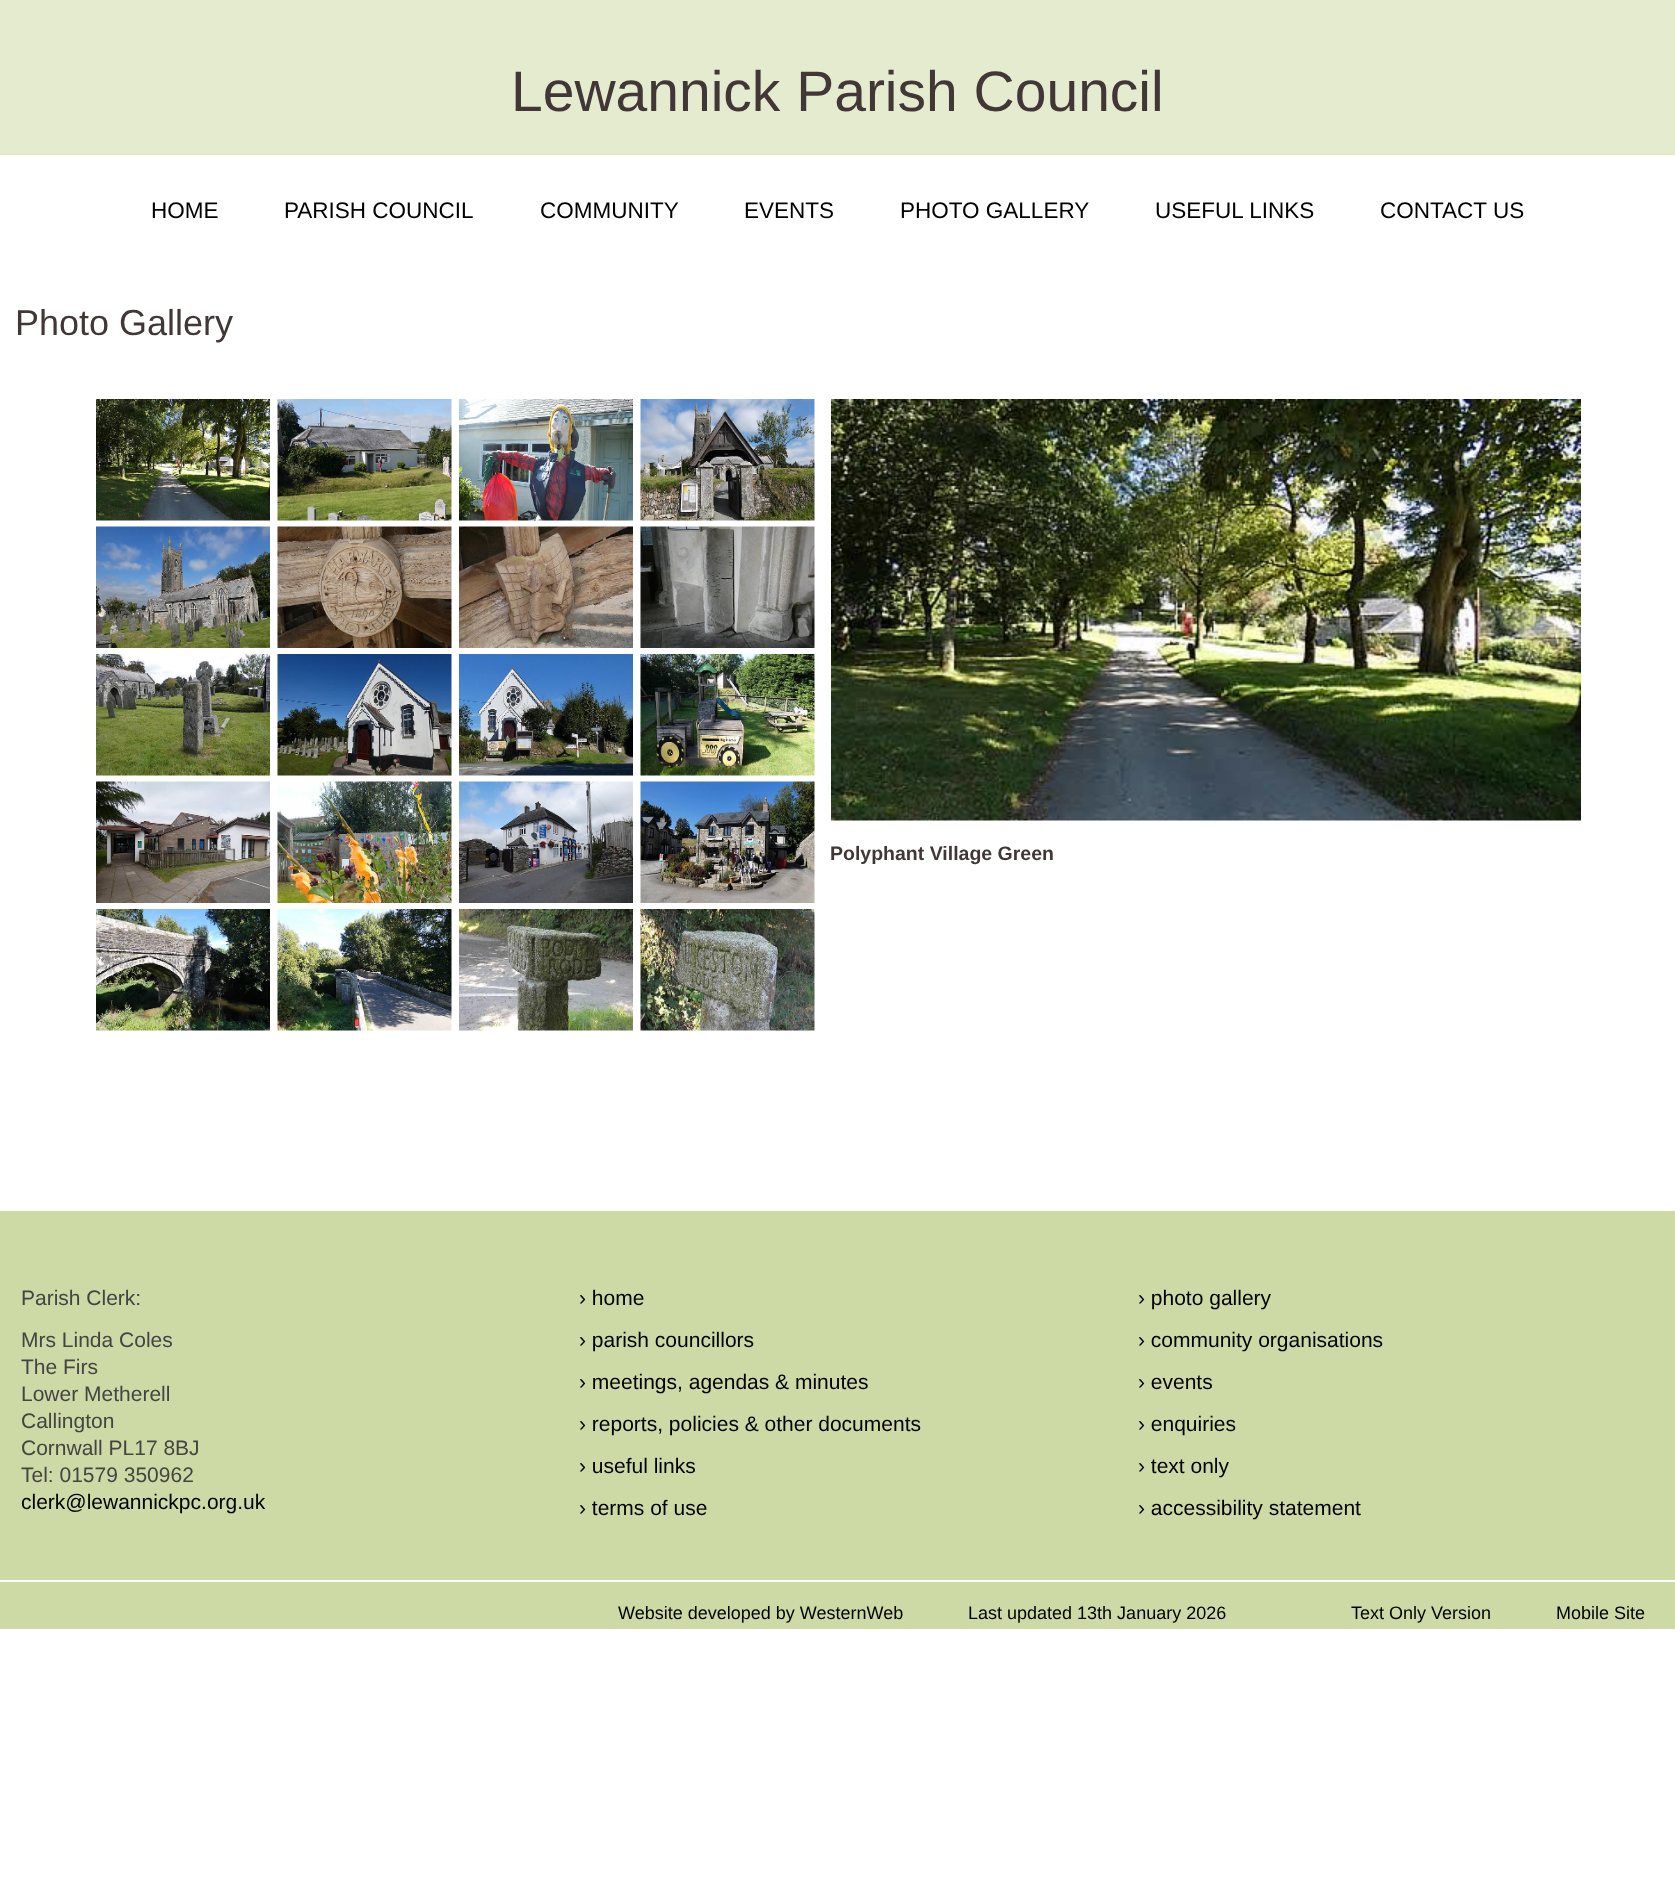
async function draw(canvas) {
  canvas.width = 1675
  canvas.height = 1900
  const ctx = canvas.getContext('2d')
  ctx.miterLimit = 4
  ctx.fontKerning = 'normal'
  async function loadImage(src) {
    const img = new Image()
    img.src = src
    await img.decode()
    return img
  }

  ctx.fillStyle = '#fff'
  ctx.fillRect(0, 0, 1675, 1900)
  ctx.fillStyle = '#e4ebcf'
  ctx.fillRect(0, 0, 1675, 153)
  ctx.fillStyle = '#e1e9c9'
  ctx.fillRect(0, 153, 1675, 2)
  ctx.font = '57px Liberation Sans'
  ctx.fillStyle = '#413736'
  ctx.fillText('Lewannick Parish Council', 511, 111)
  ctx.font = '22.5px Liberation Sans'
  ctx.fillStyle = '#000'
  ctx.fillText('HOME', 151, 218)
  ctx.fillText('PARISH COUNCIL', 284, 218)
  ctx.fillText('COMMUNITY', 540, 218)
  ctx.fillText('EVENTS', 744, 218)
  ctx.fillText('PHOTO GALLERY', 900, 218)
  ctx.fillText('USEFUL LINKS', 1155, 218)
  ctx.fillText('CONTACT US', 1380, 218)
  ctx.font = '36px Liberation Sans'
  ctx.fillStyle = '#413736'
  ctx.fillText('Photo Gallery', 15, 335)
  ctx.drawImage(await loadImage('image0.png'), 96, 399, 174, 122)
  ctx.drawImage(await loadImage('image1.png'), 277, 399, 175, 122)
  ctx.drawImage(await loadImage('image2.png'), 459, 399, 174, 122)
  ctx.drawImage(await loadImage('image3.png'), 640, 399, 175, 122)
  ctx.drawImage(await loadImage('image4.png'), 96, 526, 174, 122)
  ctx.drawImage(await loadImage('image5.png'), 277, 526, 175, 122)
  ctx.drawImage(await loadImage('image6.png'), 459, 526, 174, 122)
  ctx.drawImage(await loadImage('image7.png'), 640, 526, 175, 122)
  ctx.drawImage(await loadImage('image8.png'), 96, 654, 174, 122)
  ctx.drawImage(await loadImage('image9.png'), 277, 654, 175, 122)
  ctx.drawImage(await loadImage('image10.png'), 459, 654, 174, 122)
  ctx.drawImage(await loadImage('image11.png'), 640, 654, 175, 122)
  ctx.drawImage(await loadImage('image12.png'), 96, 781, 174, 122)
  ctx.drawImage(await loadImage('image13.png'), 277, 781, 175, 122)
  ctx.drawImage(await loadImage('image14.png'), 459, 781, 174, 122)
  ctx.drawImage(await loadImage('image15.png'), 640, 781, 175, 122)
  ctx.drawImage(await loadImage('image16.png'), 96, 909, 174, 122)
  ctx.drawImage(await loadImage('image17.png'), 277, 909, 175, 122)
  ctx.drawImage(await loadImage('image18.png'), 459, 909, 174, 122)
  ctx.drawImage(await loadImage('image19.png'), 640, 909, 175, 122)
  ctx.drawImage(await loadImage('image20.png'), 831, 399, 750, 422)
  ctx.font = 'bold 19.5px Liberation Sans'
  ctx.fillText('Polyphant Village Green', 830, 860)
  ctx.fillStyle = '#cddaa5'
  ctx.fillRect(0, 1211, 1675, 418)
  ctx.font = '21px Liberation Sans'
  ctx.fillStyle = '#444'
  ctx.fillText('Parish Clerk:', 21, 1305)
  ctx.fillText('Mrs Linda Coles', 21, 1347)
  ctx.fillText('The Firs', 21, 1374)
  ctx.fillText('Lower Metherell', 21, 1401)
  ctx.fillText('Callington', 21, 1428)
  ctx.fillText('Cornwall PL17 8BJ', 21, 1455)
  ctx.fillText('Tel: 01579 350962', 21, 1482)
  ctx.fillStyle = '#000'
  ctx.fillText('clerk@lewannickpc.org.uk', 21, 1509)
  ctx.fillText('› home', 579, 1305)
  ctx.fillText('› parish councillors', 579, 1347)
  ctx.fillText('› meetings, agendas & minutes', 579, 1389)
  ctx.fillText('› reports, policies & other documents', 579, 1431)
  ctx.fillText('› useful links', 579, 1473)
  ctx.fillText('› terms of use', 579, 1515)
  ctx.fillText('› photo gallery', 1138, 1305)
  ctx.fillText('› community organisations', 1138, 1347)
  ctx.fillText('› events', 1138, 1389)
  ctx.fillText('› enquiries', 1138, 1431)
  ctx.fillText('› text only', 1138, 1473)
  ctx.fillText('› accessibility statement', 1138, 1515)
  ctx.fillStyle = '#fff'
  ctx.fillRect(0, 1580, 1675, 2)
  ctx.font = '18px Liberation Sans'
  ctx.fillStyle = '#000'
  ctx.fillText('Website developed by WesternWeb', 618, 1619)
  ctx.fillText('Last updated 13th January 2026', 968, 1619)
  ctx.fillText('Text Only Version', 1351, 1619)
  ctx.fillText('Mobile Site', 1556, 1619)
}

draw(document.querySelector('canvas'))
